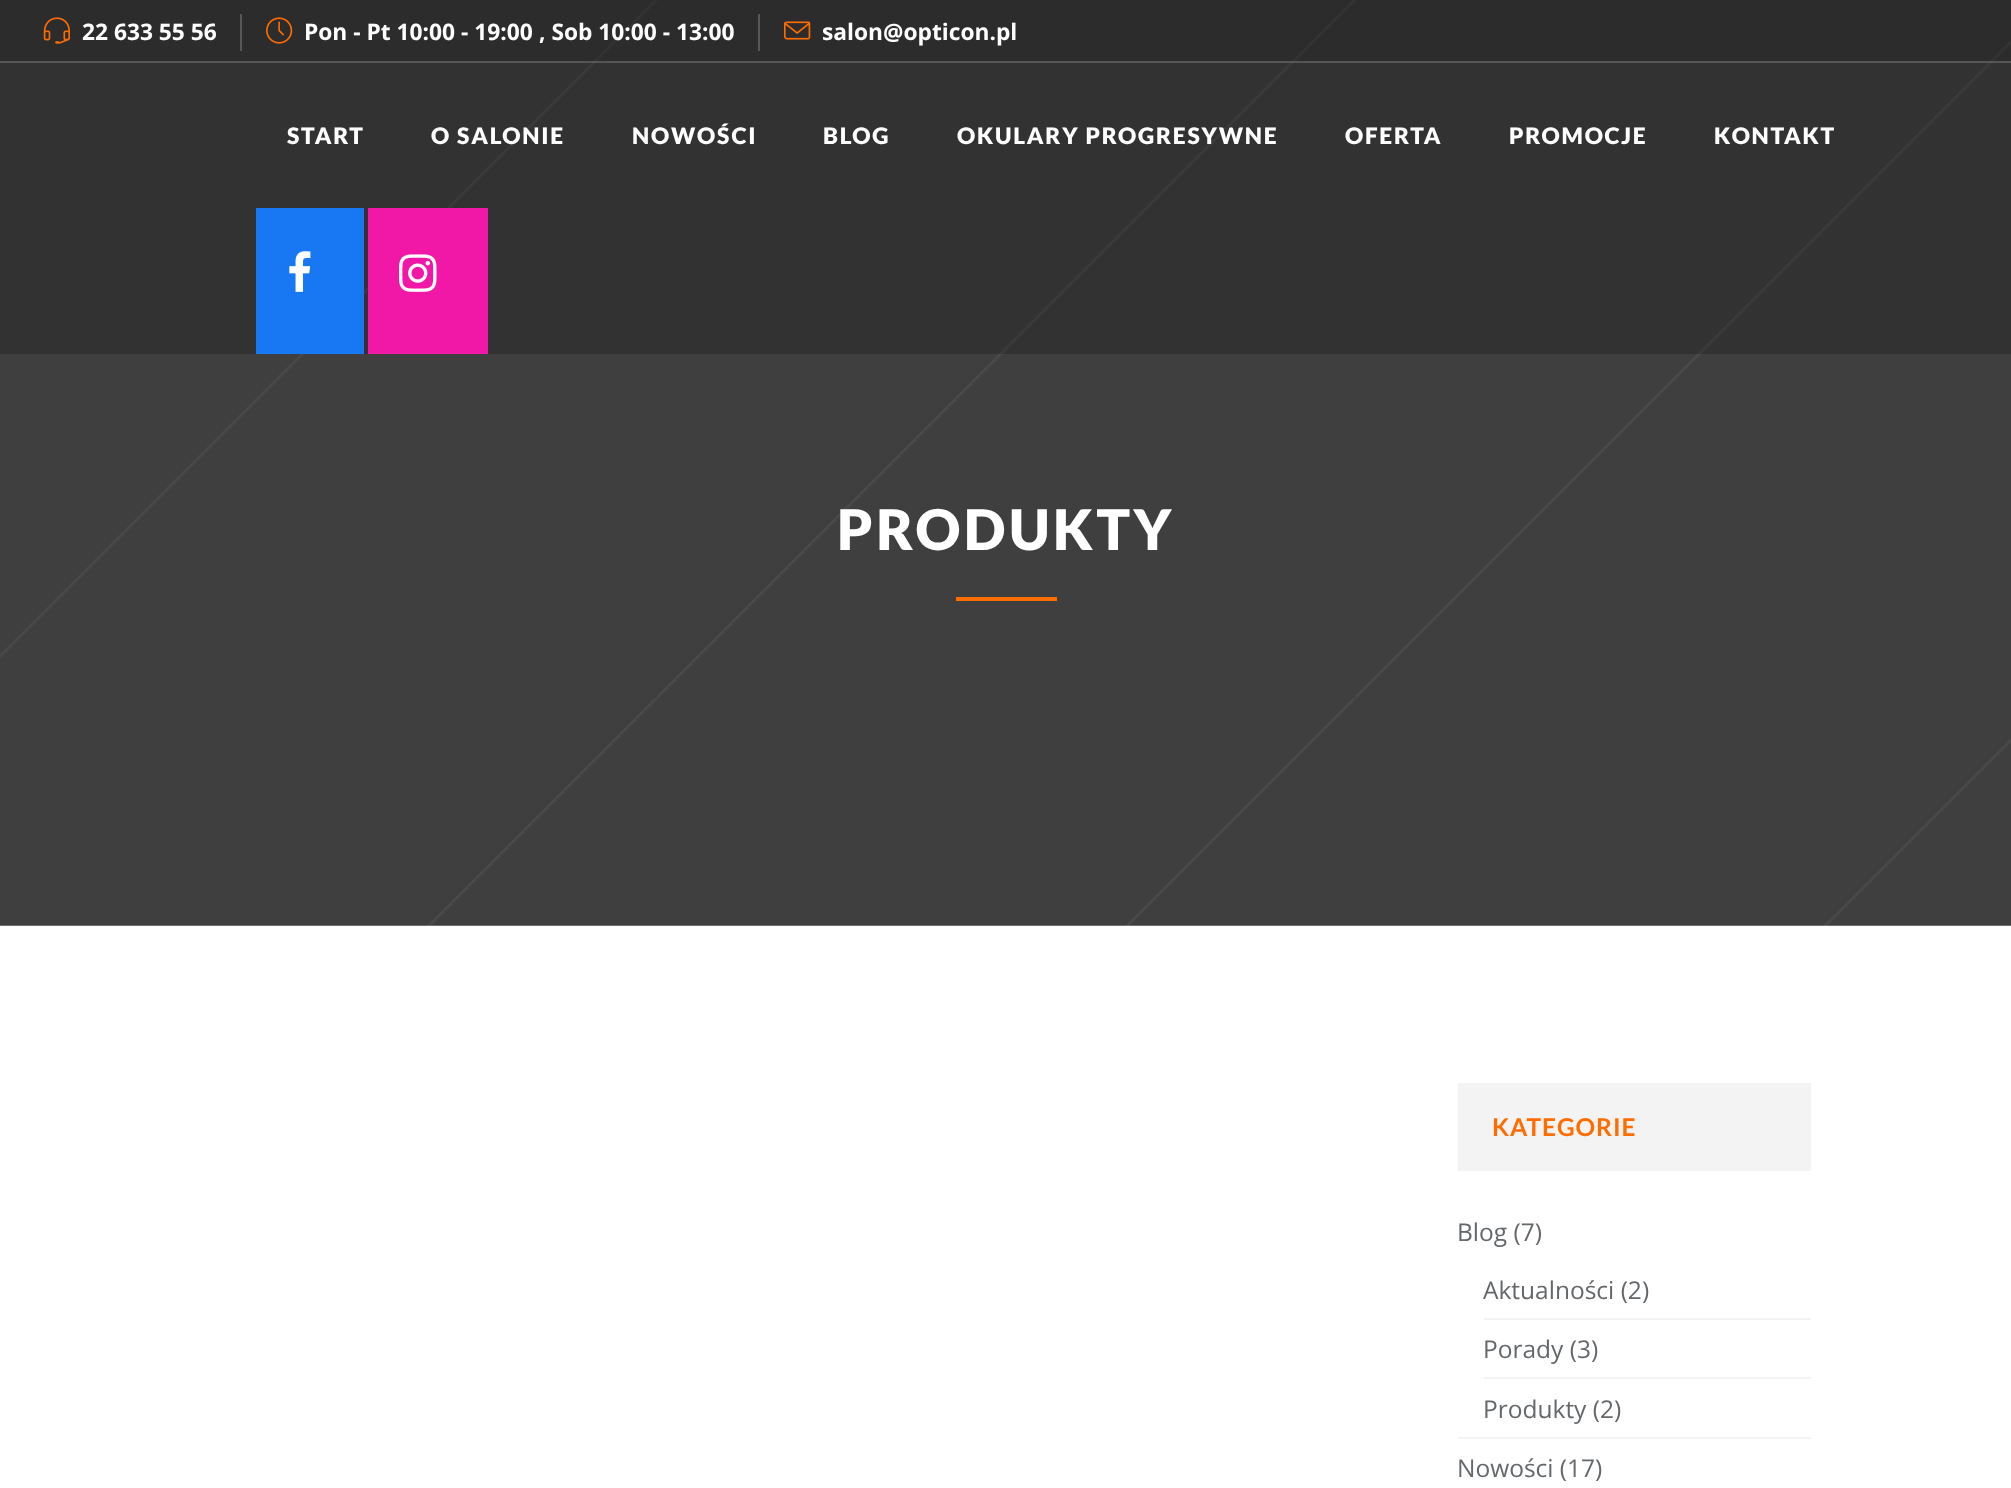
async function draw(canvas) {
  canvas.width = 2011
  canvas.height = 1488
  const ctx = canvas.getContext('2d')
  ctx.miterLimit = 4
  ctx.fontKerning = 'normal'
  async function loadImage(src) {
    const img = new Image()
    img.src = src
    await img.decode()
    return img
  }

  ctx.fillStyle = '#fff'
  ctx.fillRect(0, 0, 2011, 1488)
  ctx.drawImage(await loadImage('image5.png'), 0, 0, 2011, 926)
  ctx.fillStyle = '#0000004d'
  ctx.fillRect(0, 0, 2011, 63)
  ctx.fillStyle = '#fafafa33'
  ctx.fillRect(0, 61, 2011, 2)
  ctx.drawImage(await loadImage('image0.png'), 43, 17, 27, 27)
  ctx.font = 'bold 22.75px Open Sans'
  ctx.fillStyle = '#fff'
  ctx.fillText('22 633 55 56', 82, 40)
  ctx.fillStyle = '#565656'
  ctx.fillRect(240, 14, 2, 37)
  ctx.drawImage(await loadImage('image1.png'), 266, 17, 27, 27)
  ctx.fillStyle = '#fff'
  ctx.fillText('Pon - Pt 10:00 - 19:00', 304, 40)
  ctx.fillText(', Sob 10:00 - 13:00', 539, 40)
  ctx.fillStyle = '#565656'
  ctx.fillRect(758, 14, 2, 37)
  ctx.drawImage(await loadImage('image2.png'), 784, 21, 27, 19)
  ctx.fillStyle = '#fff'
  ctx.fillText('salon@opticon.pl', 822, 40)
  ctx.fillStyle = '#00000033'
  ctx.fillRect(0, 63, 2011, 291)
  ctx.letterSpacing = '1.75px'
  ctx.font = '900 22.75px Lato'
  ctx.fillStyle = '#fff'
  ctx.fillText('START', 287, 144)
  ctx.fillText('O SALONIE', 431, 144)
  ctx.fillText('NOWOŚCI', 632, 144)
  ctx.fillText('BLOG', 823, 144)
  ctx.fillText('OKULARY PROGRESYWNE', 957, 144)
  ctx.fillText('OFERTA', 1345, 144)
  ctx.fillText('PROMOCJE', 1509, 144)
  ctx.fillText('KONTAKT', 1714, 144)
  ctx.fillStyle = '#1877f2'
  ctx.fillRect(256, 208, 108, 146)
  ctx.drawImage(await loadImage('image3.png'), 289, 251, 22, 41)
  ctx.fillStyle = '#f218a7'
  ctx.fillRect(368, 208, 120, 146)
  ctx.drawImage(await loadImage('image4.png'), 399, 254, 38, 38)
  ctx.letterSpacing = '3.5px'
  ctx.font = '900 56px Lato'
  ctx.fillStyle = '#fff'
  ctx.fillText('PRODUKTY', 837, 550)
  ctx.fillStyle = '#ff6c00'
  ctx.fillRect(956, 597, 101, 4)
  ctx.fillStyle = '#f3f3f4'
  ctx.fillRect(1458, 1083, 353, 88)
  ctx.letterSpacing = '0.9px'
  ctx.font = 'bold 24.5px Lato'
  ctx.fillStyle = '#ff6c00'
  ctx.fillText('KATEGORIE', 1492, 1136)
  ctx.fillStyle = '#f3f3f4'
  ctx.fillRect(1458, 1437, 353, 2)
  ctx.letterSpacing = '0px'
  ctx.font = '24.5px Open Sans'
  ctx.fillStyle = '#64686b'
  ctx.fillText('Blog (7)', 1457, 1241)
  ctx.fillStyle = '#f3f3f4'
  ctx.fillRect(1484, 1318, 327, 2)
  ctx.fillStyle = '#64686b'
  ctx.fillText('Aktualności (2)', 1483, 1299)
  ctx.fillStyle = '#f3f3f4'
  ctx.fillRect(1484, 1377, 327, 2)
  ctx.fillStyle = '#64686b'
  ctx.fillText('Porady (3)', 1483, 1358)
  ctx.fillText('Produkty (2)', 1483, 1418)
  ctx.fillText('Nowości (17)', 1457, 1477)
}

draw(document.querySelector('canvas'))
